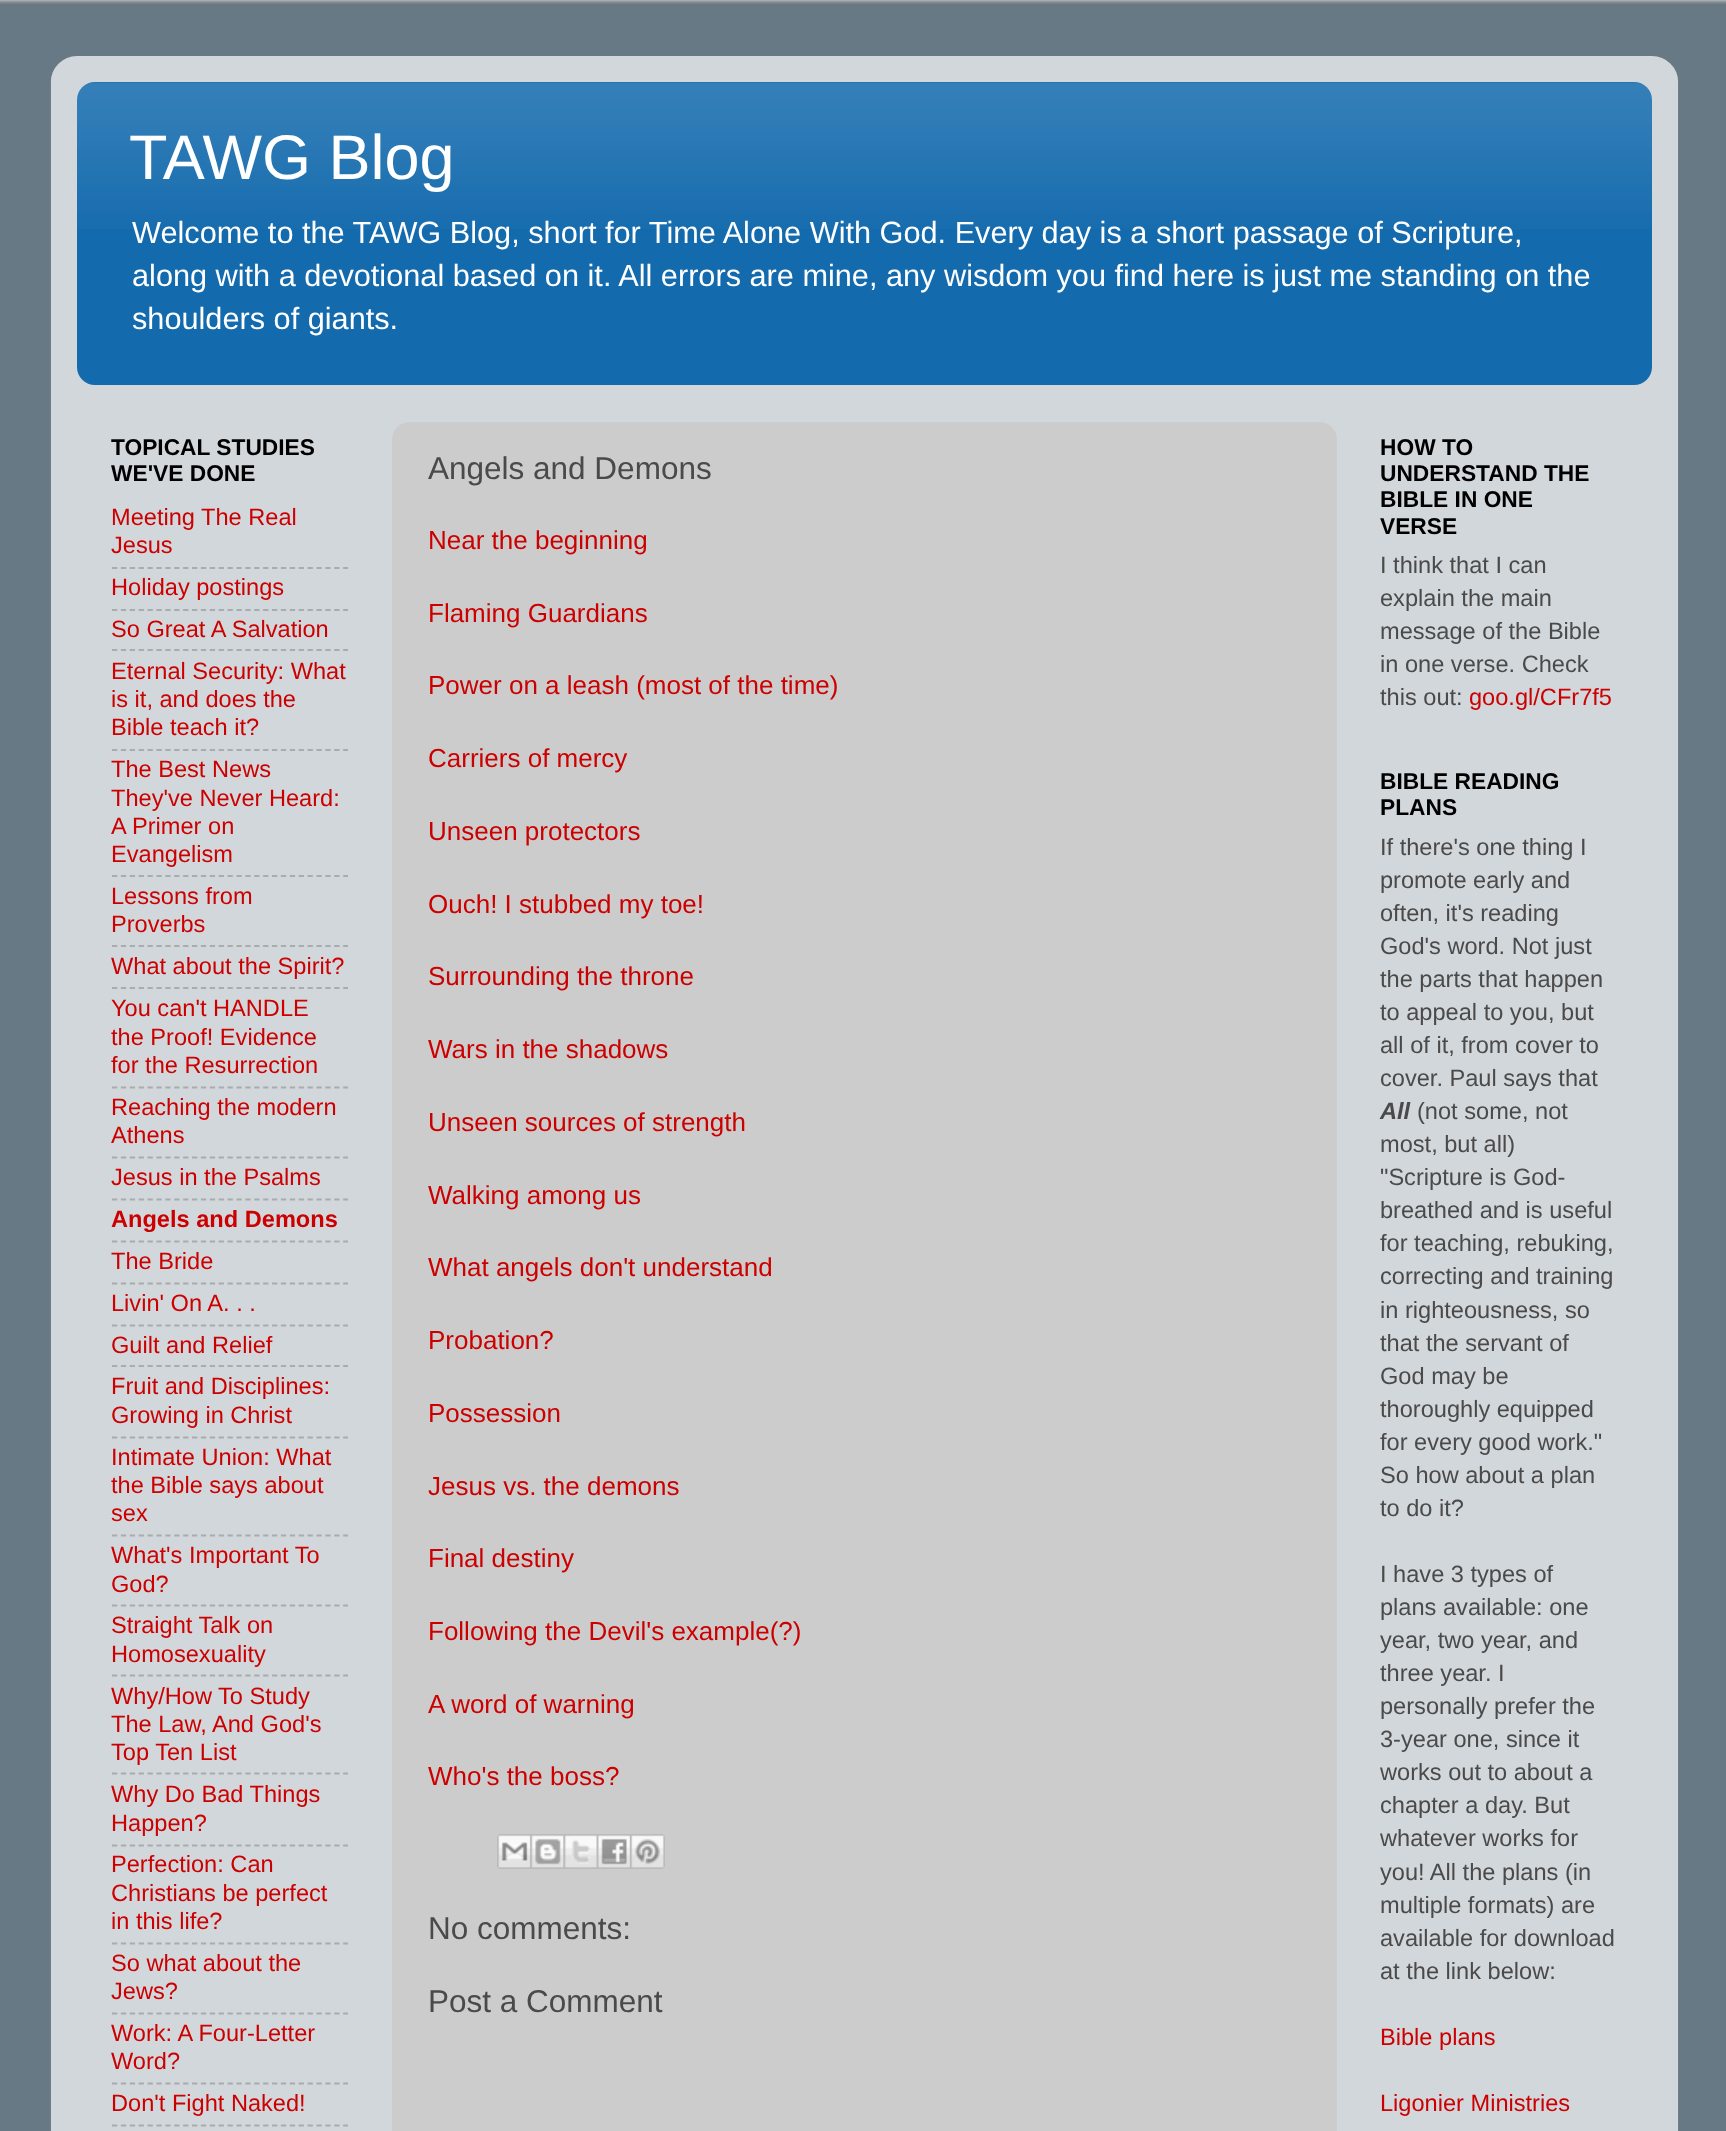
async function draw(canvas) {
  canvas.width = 1726
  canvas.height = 2131
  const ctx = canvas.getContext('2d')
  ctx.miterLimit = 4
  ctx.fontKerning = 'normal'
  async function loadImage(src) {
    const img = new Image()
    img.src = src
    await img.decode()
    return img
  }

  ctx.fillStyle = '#687986'
  ctx.fillRect(0, 0, 1726, 2131)
  ctx.drawImage(await loadImage('image0.png'), 0, 0, 1726, 4)
  ctx.drawImage(await loadImage('image1.png'), 50, 56, 1629, 2075)
  ctx.fillStyle = '#136aad'
  ctx.beginPath()
  ctx.roundRect(77, 82, 1575, 303, 18)
  ctx.fill()
  ctx.drawImage(await loadImage('image2.png'), 77, 82, 1575, 147)
  ctx.font = '63px Liberation Sans'
  ctx.fillStyle = '#fff'
  ctx.fillText('TAWG Blog', 129, 179)
  ctx.font = '30.7px Liberation Sans'
  ctx.fillText('Welcome to the TAWG Blog, short for Time Alone With God. Every day is a short passage of Scripture,', 132, 243)
  ctx.fillText('along with a devotional based on it. All errors are mine, any wisdom you find here is just me standing on the', 132, 286)
  ctx.fillText('shoulders of giants.', 132, 329)
  ctx.font = 'bold 22.75px Liberation Sans'
  ctx.fillStyle = '#000'
  ctx.fillText('TOPICAL STUDIES', 111, 455)
  ctx.fillText('WE\'VE DONE', 111, 481)
  ctx.font = '23.6px Liberation Sans'
  ctx.fillStyle = '#c00'
  ctx.fillText('Meeting The Real', 111, 525)
  ctx.fillText('Jesus', 111, 553)
  ctx.beginPath()
  ctx.moveTo(112, 568)
  ctx.lineTo(348, 568)
  ctx.strokeStyle = '#a9acad'
  ctx.lineWidth = 1.8
  ctx.setLineDash([5.25, 3.64])
  ctx.stroke()
  ctx.fillText('Holiday postings', 111, 595)
  ctx.beginPath()
  ctx.moveTo(112, 610)
  ctx.lineTo(348, 610)
  ctx.stroke()
  ctx.fillText('So Great A Salvation', 111, 637)
  ctx.beginPath()
  ctx.moveTo(112, 650)
  ctx.lineTo(348, 650)
  ctx.stroke()
  ctx.fillText('Eternal Security: What', 111, 679)
  ctx.fillText('is it, and does the', 111, 707)
  ctx.fillText('Bible teach it?', 111, 735)
  ctx.beginPath()
  ctx.moveTo(112, 750)
  ctx.lineTo(348, 750)
  ctx.stroke()
  ctx.fillText('The Best News', 111, 777)
  ctx.fillText('They\'ve Never Heard:', 111, 806)
  ctx.fillText('A Primer on', 111, 834)
  ctx.fillText('Evangelism', 111, 862)
  ctx.beginPath()
  ctx.moveTo(112, 876)
  ctx.lineTo(348, 876)
  ctx.stroke()
  ctx.fillText('Lessons from', 111, 904)
  ctx.fillText('Proverbs', 111, 932)
  ctx.beginPath()
  ctx.moveTo(112, 946)
  ctx.lineTo(348, 946)
  ctx.stroke()
  ctx.fillText('What about the Spirit?', 111, 974)
  ctx.beginPath()
  ctx.moveTo(112, 988)
  ctx.lineTo(348, 988)
  ctx.stroke()
  ctx.fillText('You can\'t HANDLE', 111, 1016)
  ctx.fillText('the Proof! Evidence', 111, 1045)
  ctx.fillText('for the Resurrection', 111, 1073)
  ctx.beginPath()
  ctx.moveTo(112, 1087.5)
  ctx.lineTo(348, 1087.5)
  ctx.stroke()
  ctx.fillText('Reaching the modern', 111, 1115)
  ctx.fillText('Athens', 111, 1143)
  ctx.beginPath()
  ctx.moveTo(112, 1157.5)
  ctx.lineTo(348, 1157.5)
  ctx.stroke()
  ctx.fillText('Jesus in the Psalms', 111, 1185)
  ctx.beginPath()
  ctx.moveTo(112, 1199.5)
  ctx.lineTo(348, 1199.5)
  ctx.stroke()
  ctx.font = 'bold 23.6px Liberation Sans'
  ctx.fillText('Angels and Demons', 111, 1227)
  ctx.beginPath()
  ctx.moveTo(112, 1241.5)
  ctx.lineTo(348, 1241.5)
  ctx.stroke()
  ctx.font = '23.6px Liberation Sans'
  ctx.fillText('The Bride', 111, 1269)
  ctx.beginPath()
  ctx.moveTo(112, 1283.5)
  ctx.lineTo(348, 1283.5)
  ctx.stroke()
  ctx.fillText('Livin\' On A. . .', 111, 1311)
  ctx.beginPath()
  ctx.moveTo(112, 1325.5)
  ctx.lineTo(348, 1325.5)
  ctx.stroke()
  ctx.fillText('Guilt and Relief', 111, 1353)
  ctx.beginPath()
  ctx.moveTo(112, 1366)
  ctx.lineTo(348, 1366)
  ctx.stroke()
  ctx.fillText('Fruit and Disciplines:', 111, 1394)
  ctx.fillText('Growing in Christ', 111, 1423)
  ctx.beginPath()
  ctx.moveTo(112, 1437.5)
  ctx.lineTo(348, 1437.5)
  ctx.stroke()
  ctx.fillText('Intimate Union: What', 111, 1465)
  ctx.fillText('the Bible says about', 111, 1493)
  ctx.fillText('sex', 111, 1521)
  ctx.beginPath()
  ctx.moveTo(112, 1535.5)
  ctx.lineTo(348, 1535.5)
  ctx.stroke()
  ctx.fillText('What\'s Important To', 111, 1563)
  ctx.fillText('God?', 111, 1592)
  ctx.beginPath()
  ctx.moveTo(112, 1605.5)
  ctx.lineTo(348, 1605.5)
  ctx.stroke()
  ctx.fillText('Straight Talk on', 111, 1633)
  ctx.fillText('Homosexuality', 111, 1662)
  ctx.beginPath()
  ctx.moveTo(112, 1675.5)
  ctx.lineTo(348, 1675.5)
  ctx.stroke()
  ctx.fillText('Why/How To Study', 111, 1704)
  ctx.fillText('The Law, And God\'s', 111, 1732)
  ctx.fillText('Top Ten List', 111, 1760)
  ctx.beginPath()
  ctx.moveTo(112, 1773.5)
  ctx.lineTo(348, 1773.5)
  ctx.stroke()
  ctx.fillText('Why Do Bad Things', 111, 1802)
  ctx.fillText('Happen?', 111, 1831)
  ctx.beginPath()
  ctx.moveTo(112, 1845.5)
  ctx.lineTo(348, 1845.5)
  ctx.stroke()
  ctx.fillText('Perfection: Can', 111, 1872)
  ctx.fillText('Christians be perfect', 111, 1901)
  ctx.fillText('in this life?', 111, 1929)
  ctx.beginPath()
  ctx.moveTo(112, 1943.5)
  ctx.lineTo(348, 1943.5)
  ctx.stroke()
  ctx.fillText('So what about the', 111, 1971)
  ctx.fillText('Jews?', 111, 1999)
  ctx.beginPath()
  ctx.moveTo(112, 2013.5)
  ctx.lineTo(348, 2013.5)
  ctx.stroke()
  ctx.fillText('Work: A Four-Letter', 111, 2041)
  ctx.fillText('Word?', 111, 2069)
  ctx.beginPath()
  ctx.moveTo(112, 2083.5)
  ctx.lineTo(348, 2083.5)
  ctx.stroke()
  ctx.fillText('Don\'t Fight Naked!', 111, 2111)
  ctx.beginPath()
  ctx.moveTo(112, 2125.5)
  ctx.lineTo(348, 2125.5)
  ctx.stroke()
  ctx.fillStyle = '#ccc'
  ctx.beginPath()
  ctx.roundRect(392, 422, 945, 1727, 18)
  ctx.fill()
  ctx.font = '31.5px Liberation Sans'
  ctx.fillStyle = '#4a4a4a'
  ctx.fillText('Angels and Demons', 428, 479)
  ctx.font = '26px Liberation Sans'
  ctx.fillStyle = '#c00'
  ctx.fillText('Near the beginning', 428, 549)
  ctx.fillText('Flaming Guardians', 428, 622)
  ctx.fillText('Power on a leash (most of the time)', 428, 694)
  ctx.fillText('Carriers of mercy', 428, 767)
  ctx.fillText('Unseen protectors', 428, 840)
  ctx.fillText('Ouch! I stubbed my toe!', 428, 913)
  ctx.fillText('Surrounding the throne', 428, 985)
  ctx.fillText('Wars in the shadows', 428, 1058)
  ctx.fillText('Unseen sources of strength', 428, 1131)
  ctx.fillText('Walking among us', 428, 1204)
  ctx.fillText('What angels don\'t understand', 428, 1276)
  ctx.fillText('Probation?', 428, 1349)
  ctx.fillText('Possession', 428, 1422)
  ctx.fillText('Jesus vs. the demons', 428, 1495)
  ctx.fillText('Final destiny', 428, 1567)
  ctx.fillText('Following the Devil\'s example(?)', 428, 1640)
  ctx.fillText('A word of warning', 428, 1713)
  ctx.fillText('Who\'s the boss?', 428, 1785)
  ctx.drawImage(await loadImage('image3.png'), 497, 1834, 34, 35)
  ctx.drawImage(await loadImage('image4.png'), 530, 1834, 34, 35)
  ctx.drawImage(await loadImage('image5.png'), 563, 1834, 34, 35)
  ctx.drawImage(await loadImage('image6.png'), 596, 1834, 34, 35)
  ctx.drawImage(await loadImage('image7.png'), 630, 1834, 35, 35)
  ctx.font = '31.5px Liberation Sans'
  ctx.fillStyle = '#4a4a4a'
  ctx.fillText('No comments:', 428, 1939)
  ctx.fillText('Post a Comment', 428, 2012)
  ctx.font = 'bold 22.75px Liberation Sans'
  ctx.fillStyle = '#000'
  ctx.fillText('HOW TO', 1380, 455)
  ctx.fillText('UNDERSTAND THE', 1380, 481)
  ctx.fillText('BIBLE IN ONE', 1380, 507)
  ctx.fillText('VERSE', 1380, 534)
  ctx.font = '23.6px Liberation Sans'
  ctx.fillStyle = '#4a4a4a'
  ctx.fillText('I think that I can', 1380, 573)
  ctx.fillText('explain the main', 1380, 606)
  ctx.fillText('message of the Bible', 1380, 639)
  ctx.fillText('in one verse. Check', 1380, 672)
  ctx.fillText('this out:', 1380, 705)
  ctx.fillStyle = '#c00'
  ctx.fillText('goo.gl/CFr7f5', 1469, 705)
  ctx.font = 'bold 22.75px Liberation Sans'
  ctx.fillStyle = '#000'
  ctx.fillText('BIBLE READING', 1380, 789)
  ctx.fillText('PLANS', 1380, 815)
  ctx.font = '23.6px Liberation Sans'
  ctx.fillStyle = '#4a4a4a'
  ctx.fillText('If there\'s one thing I', 1380, 855)
  ctx.fillText('promote early and', 1380, 888)
  ctx.fillText('often, it\'s reading', 1380, 921)
  ctx.fillText('God\'s word. Not just', 1380, 954)
  ctx.fillText('the parts that happen', 1380, 987)
  ctx.fillText('to appeal to you, but', 1380, 1020)
  ctx.fillText('all of it, from cover to', 1380, 1053)
  ctx.fillText('cover. Paul says that', 1380, 1086)
  ctx.font = 'italic bold 23.6px Liberation Sans'
  ctx.fillText('All', 1380, 1119)
  ctx.font = '23.6px Liberation Sans'
  ctx.fillText('(not some, not', 1417, 1119)
  ctx.fillText('most, but all)', 1380, 1152)
  ctx.fillText('"Scripture is God-', 1380, 1185)
  ctx.fillText('breathed and is useful', 1380, 1218)
  ctx.fillText('for teaching, rebuking,', 1380, 1251)
  ctx.fillText('correcting and training', 1380, 1284)
  ctx.fillText('in righteousness, so', 1380, 1318)
  ctx.fillText('that the servant of', 1380, 1351)
  ctx.fillText('God may be', 1380, 1384)
  ctx.fillText('thoroughly equipped', 1380, 1417)
  ctx.fillText('for every good work."', 1380, 1450)
  ctx.fillText('So how about a plan', 1380, 1483)
  ctx.fillText('to do it?', 1380, 1516)
  ctx.fillText('I have 3 types of', 1380, 1582)
  ctx.fillText('plans available: one', 1380, 1615)
  ctx.fillText('year, two year, and', 1380, 1648)
  ctx.fillText('three year. I', 1380, 1681)
  ctx.fillText('personally prefer the', 1380, 1714)
  ctx.fillText('3-year one, since it', 1380, 1747)
  ctx.fillText('works out to about a', 1380, 1780)
  ctx.fillText('chapter a day. But', 1380, 1813)
  ctx.fillText('whatever works for', 1380, 1846)
  ctx.fillText('you! All the plans (in', 1380, 1880)
  ctx.fillText('multiple formats) are', 1380, 1913)
  ctx.fillText('available for download', 1380, 1946)
  ctx.fillText('at the link below:', 1380, 1979)
  ctx.fillStyle = '#c00'
  ctx.fillText('Bible plans', 1380, 2045)
  ctx.fillText('Ligonier Ministries', 1380, 2111)
}

draw(document.querySelector('canvas'))
